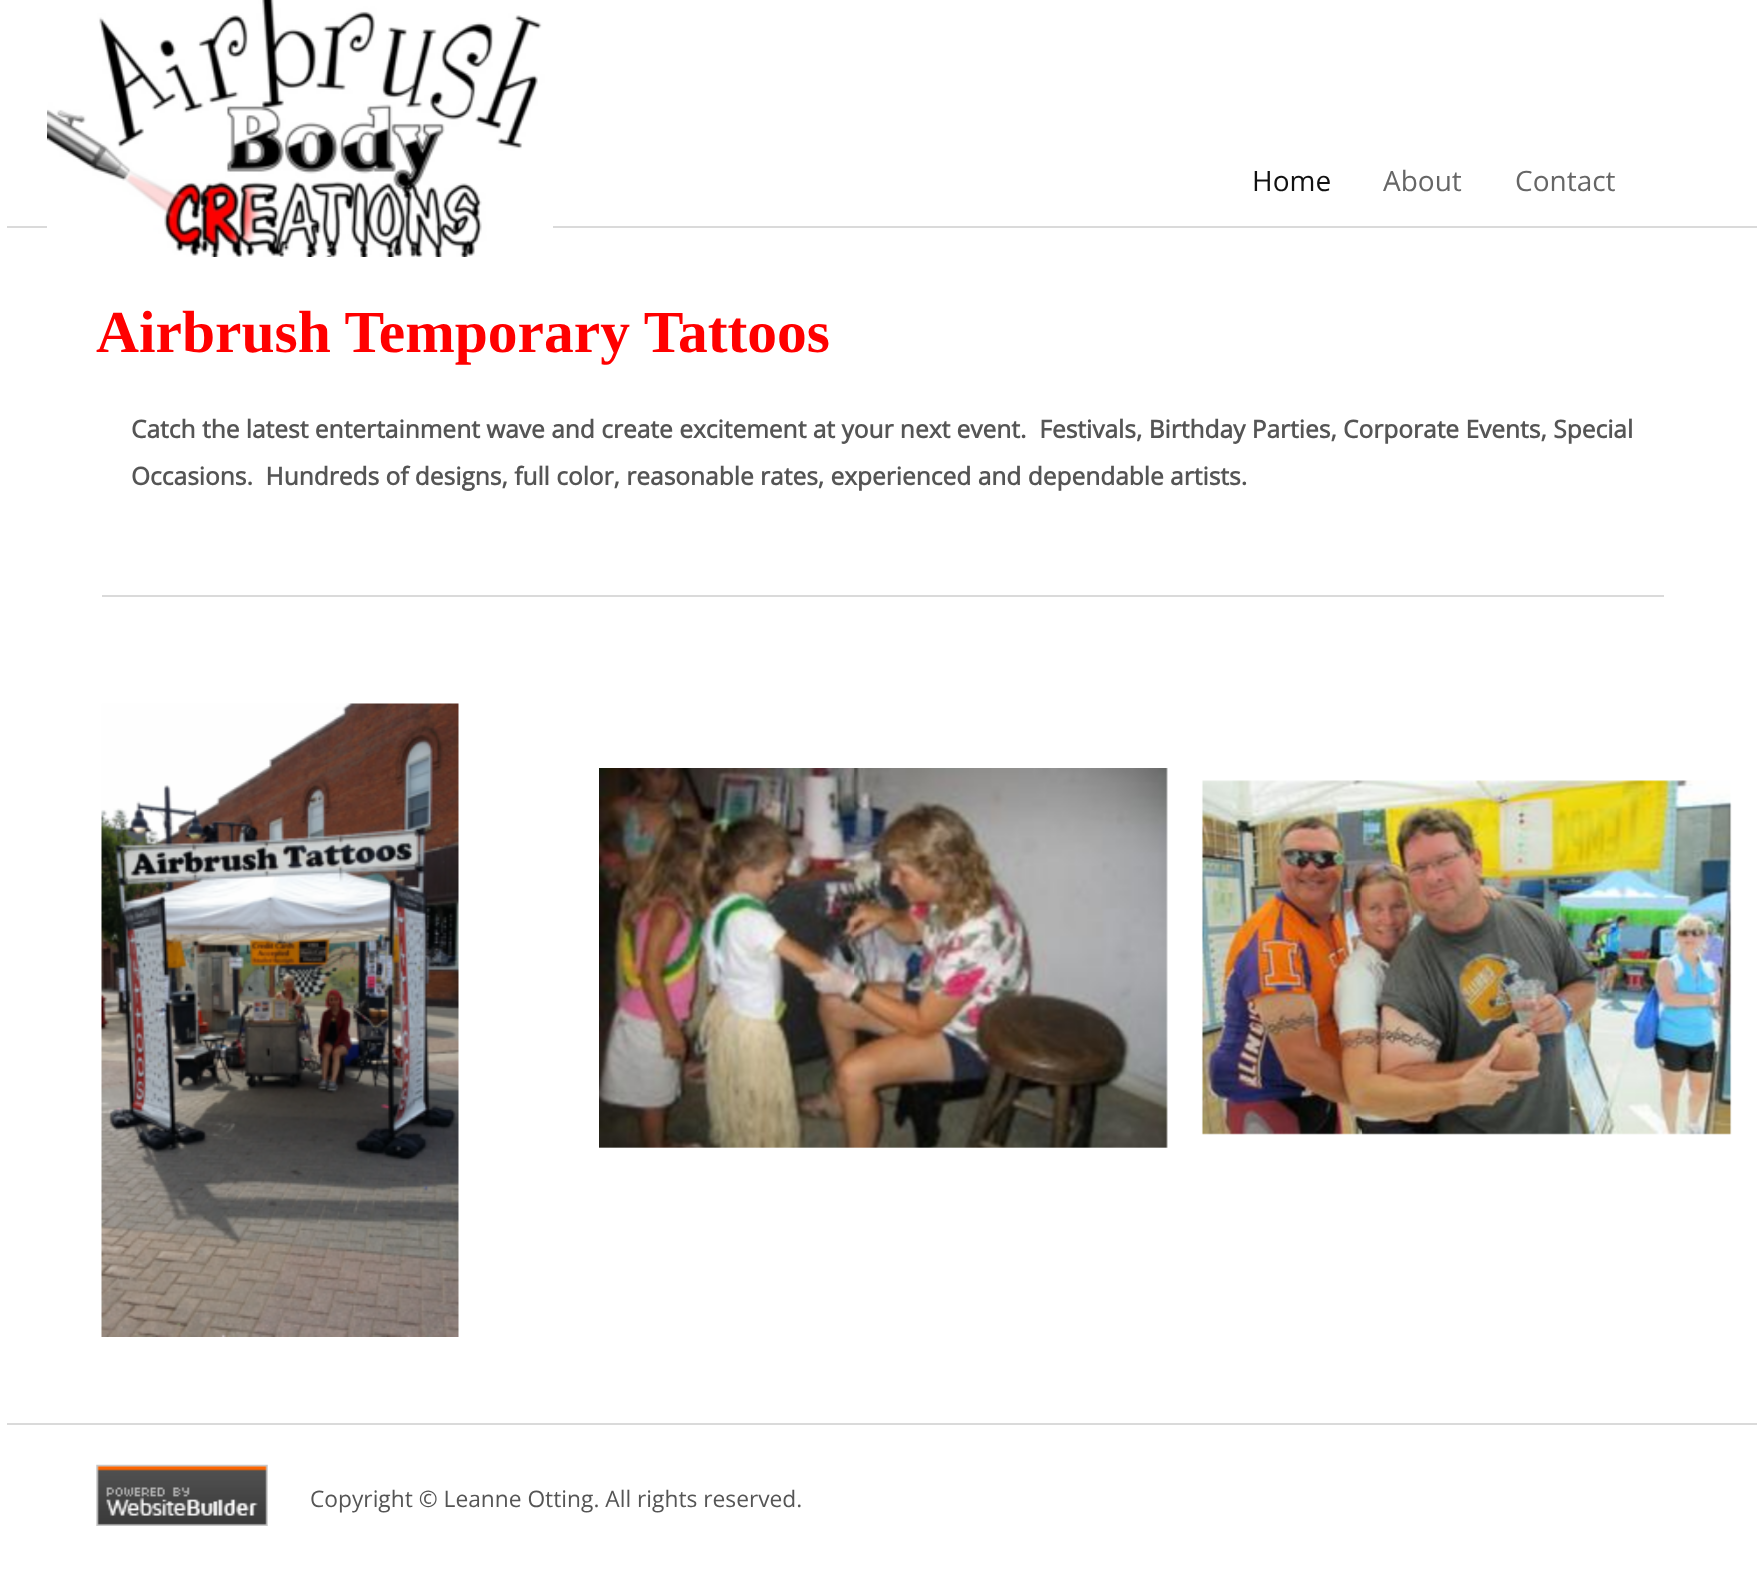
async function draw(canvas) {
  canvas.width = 1764
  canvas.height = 1589
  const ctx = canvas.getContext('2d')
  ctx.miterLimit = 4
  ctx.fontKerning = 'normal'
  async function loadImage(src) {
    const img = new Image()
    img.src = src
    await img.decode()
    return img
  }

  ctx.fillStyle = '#fff'
  ctx.fillRect(0, 0, 1764, 1589)
  ctx.fillStyle = '#dadada'
  ctx.fillRect(7, 226, 1750, 2)
  ctx.drawImage(await loadImage('image0.png'), 47, 0, 506, 257)
  ctx.font = '28px Open Sans'
  ctx.fillStyle = '#111'
  ctx.fillText('Home', 1252, 191)
  ctx.fillStyle = '#666'
  ctx.fillText('About', 1383, 191)
  ctx.fillText('Contact', 1515, 191)
  ctx.font = 'bold 59.5px Liberation Serif'
  ctx.fillStyle = '#f00'
  ctx.fillText('Airbrush Temporary Tattoos', 96, 352)
  ctx.font = 'bold 24.5px Open Sans'
  ctx.fillStyle = '#555'
  ctx.fillText('Catch the latest entertainment wave and create excitement at your next event.  Festivals, Birthday Parties, Corporate Events, Special', 131, 438)
  ctx.fillText('Occasions.  Hundreds of designs, full color, reasonable rates, experienced and dependable artists.', 131, 485)
  ctx.fillStyle = '#dadada'
  ctx.fillRect(102, 595, 1562, 2)
  ctx.drawImage(await loadImage('image1.png'), 101, 703, 358, 634)
  ctx.drawImage(await loadImage('image2.png'), 599, 768, 569, 380)
  ctx.drawImage(await loadImage('image3.png'), 1201, 780, 531, 355)
  ctx.fillRect(7, 1423, 1750, 2)
  ctx.drawImage(await loadImage('image4.png'), 96, 1464, 172, 62)
  ctx.font = '22.75px Open Sans'
  ctx.fillStyle = '#555'
  ctx.fillText('Copyright © Leanne Otting. All rights reserved.', 310, 1507)
}

draw(document.querySelector('canvas'))
